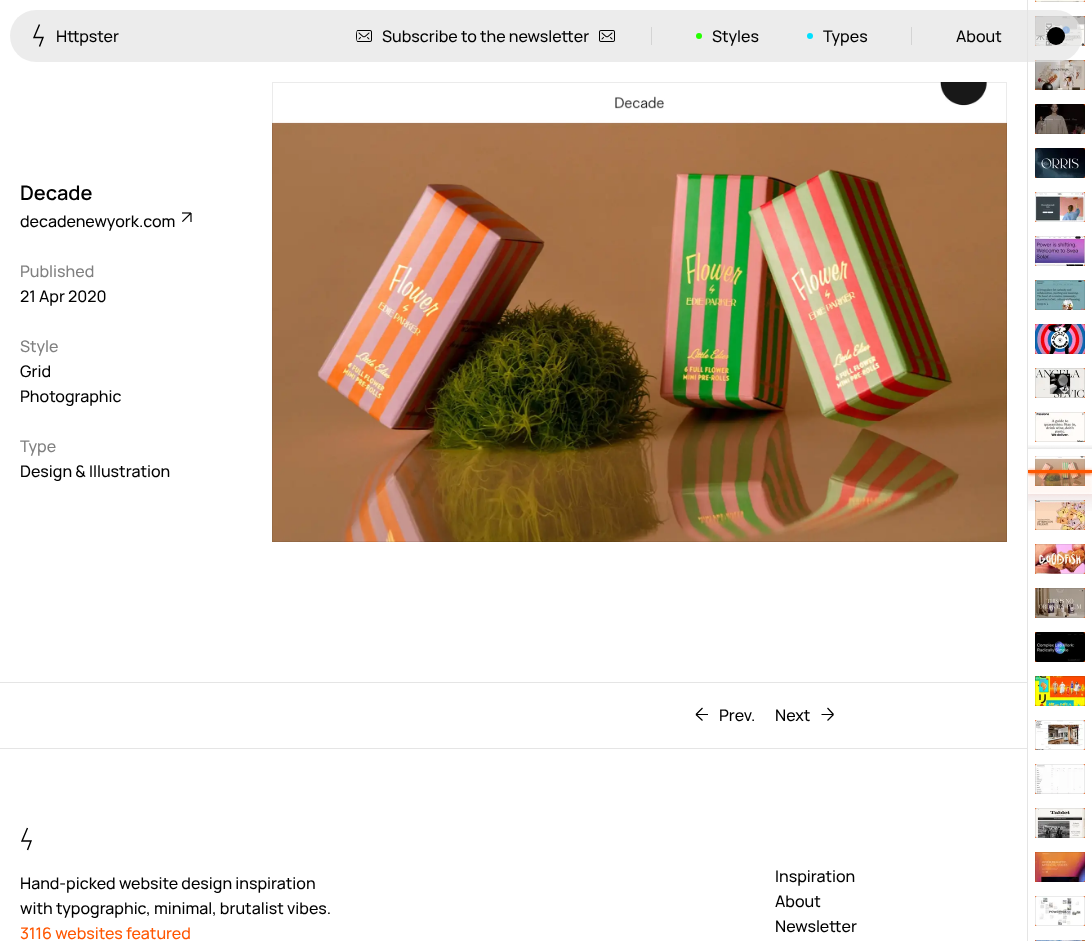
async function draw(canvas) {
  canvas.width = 1092
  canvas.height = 941
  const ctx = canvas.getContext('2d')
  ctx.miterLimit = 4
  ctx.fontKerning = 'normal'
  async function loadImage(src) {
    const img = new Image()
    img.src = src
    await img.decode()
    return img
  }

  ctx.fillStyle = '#fff'
  ctx.fillRect(0, 0, 1092, 941)
  ctx.fillStyle = '#e5e5e5'
  ctx.fillRect(1027, 0, 1, 941)
  ctx.fillStyle = '#ff5601'
  ctx.fillRect(1035, 16, 50, 30)
  ctx.drawImage(await loadImage('image5.png'), 1035, 16, 50, 30)
  ctx.strokeStyle = '#00000014'
  ctx.strokeRect(1035.5, 16.5, 49, 29)
  ctx.fillRect(1035, 60, 50, 30)
  ctx.drawImage(await loadImage('image6.png'), 1035, 60, 50, 30)
  ctx.strokeRect(1035.5, 60.5, 49, 29)
  ctx.fillStyle = '#e2e2e2ab'
  ctx.beginPath()
  ctx.roundRect(10, 10, 1072, 52, 26)
  ctx.fill()
  ctx.beginPath()
  ctx.moveTo(39.5, 24.5)
  ctx.lineTo(34, 37.5)
  ctx.lineTo(43, 37.5)
  ctx.lineTo(39.5, 46.5)
  ctx.strokeStyle = '#000'
  ctx.lineWidth = 1.4
  ctx.stroke()
  ctx.font = '200 16px "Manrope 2"'
  ctx.fillStyle = '#000'
  ctx.fillText('Httpster', 56, 42)
  ctx.drawImage(await loadImage('image0.png'), 356, 30, 16, 12)
  ctx.fillText('Subscribe to the newsletter', 382, 42)
  ctx.drawImage(await loadImage('image1.png'), 599, 30, 16, 12)
  ctx.fillStyle = '#d4d4d4'
  ctx.fillRect(651, 27, 1, 18)
  ctx.fillStyle = '#24ff00'
  ctx.beginPath()
  ctx.arc(699, 36, 3, 0, 2 * Math.PI)
  ctx.fill()
  ctx.fillStyle = '#000'
  ctx.fillText('Styles', 712, 42)
  ctx.fillStyle = '#00e0ff'
  ctx.beginPath()
  ctx.arc(810, 36, 3, 0, 2 * Math.PI)
  ctx.fill()
  ctx.fillStyle = '#000'
  ctx.fillText('Types', 823, 42)
  ctx.fillStyle = '#d4d4d4'
  ctx.fillRect(911, 27, 1, 18)
  ctx.fillStyle = '#000'
  ctx.fillText('About', 956, 42)
  ctx.beginPath()
  ctx.arc(1056, 36, 9, 0, 2 * Math.PI)
  ctx.fill()
  ctx.font = '200 20px Manrope'
  ctx.fillText('Decade', 20, 200)
  ctx.font = '200 16px "Manrope 2"'
  ctx.fillText('decadenewyork.com', 20, 227)
  ctx.drawImage(await loadImage('image2.png'), 182, 212, 10, 10)
  ctx.drawImage(await loadImage('image3.png'), 272, 82, 735, 460)
  ctx.strokeStyle = '#00000014'
  ctx.lineWidth = 1
  ctx.strokeRect(272.5, 82.5, 734, 459)
  ctx.fillStyle = '#808080'
  ctx.fillText('Published', 20, 277)
  ctx.fillStyle = '#000'
  ctx.fillText('21 Apr 2020', 20, 302)
  ctx.fillStyle = '#808080'
  ctx.fillText('Style', 20, 352)
  ctx.fillStyle = '#000'
  ctx.fillText('Grid', 20, 377)
  ctx.fillText('Photographic', 20, 402)
  ctx.fillStyle = '#808080'
  ctx.fillText('Type', 20, 452)
  ctx.fillStyle = '#000'
  ctx.fillText('Design & Illustration', 20, 477)
  ctx.fillStyle = '#ff5601'
  ctx.fillRect(1035, 0, 50, 2)
  ctx.drawImage(await loadImage('image4.png'), 1035, 0, 50, 2)
  ctx.strokeRect(1035.5, -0.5, 49, 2)
  ctx.fillRect(1035, 104, 50, 30)
  ctx.drawImage(await loadImage('image7.png'), 1035, 104, 50, 30)
  ctx.strokeRect(1035.5, 104.5, 49, 29)
  ctx.fillRect(1035, 148, 50, 30)
  ctx.drawImage(await loadImage('image8.png'), 1035, 148, 50, 30)
  ctx.strokeRect(1035.5, 148.5, 49, 29)
  ctx.fillRect(1035, 192, 50, 30)
  ctx.drawImage(await loadImage('image9.png'), 1035, 192, 50, 30)
  ctx.strokeRect(1035.5, 192.5, 49, 29)
  ctx.fillRect(1035, 236, 50, 30)
  ctx.drawImage(await loadImage('image10.png'), 1035, 236, 50, 30)
  ctx.strokeRect(1035.5, 236.5, 49, 29)
  ctx.fillRect(1035, 280, 50, 30)
  ctx.drawImage(await loadImage('image11.png'), 1035, 280, 50, 30)
  ctx.strokeRect(1035.5, 280.5, 49, 29)
  ctx.fillRect(1035, 324, 50, 30)
  ctx.drawImage(await loadImage('image12.png'), 1035, 324, 50, 30)
  ctx.strokeRect(1035.5, 324.5, 49, 29)
  ctx.fillRect(1035, 368, 50, 30)
  ctx.drawImage(await loadImage('image13.png'), 1035, 368, 50, 30)
  ctx.strokeRect(1035.5, 368.5, 49, 29)
  ctx.fillRect(1035, 412, 50, 30)
  ctx.drawImage(await loadImage('image14.png'), 1035, 412, 50, 30)
  ctx.strokeRect(1035.5, 412.5, 49, 29)
  ctx.fillStyle = '#ff671a'
  ctx.fillRect(1035, 456, 50, 30)
  ctx.drawImage(await loadImage('image15.png'), 1035, 456, 50, 30)
  ctx.strokeStyle = '#1a1a1a14'
  ctx.strokeRect(1035.5, 456.5, 49, 29)
  ctx.fillStyle = '#ff5601'
  ctx.fillRect(1035, 500, 50, 30)
  ctx.drawImage(await loadImage('image16.png'), 1035, 500, 50, 30)
  ctx.strokeStyle = '#00000014'
  ctx.strokeRect(1035.5, 500.5, 49, 29)
  ctx.fillRect(1035, 544, 50, 30)
  ctx.drawImage(await loadImage('image17.png'), 1035, 544, 50, 30)
  ctx.strokeRect(1035.5, 544.5, 49, 29)
  ctx.fillRect(1035, 588, 50, 30)
  ctx.drawImage(await loadImage('image18.png'), 1035, 588, 50, 30)
  ctx.strokeRect(1035.5, 588.5, 49, 29)
  ctx.fillRect(1035, 632, 50, 30)
  ctx.drawImage(await loadImage('image19.png'), 1035, 632, 50, 30)
  ctx.strokeRect(1035.5, 632.5, 49, 29)
  ctx.fillRect(1035, 676, 50, 30)
  ctx.drawImage(await loadImage('image20.png'), 1035, 676, 50, 30)
  ctx.strokeRect(1035.5, 676.5, 49, 29)
  ctx.fillRect(1035, 720, 50, 30)
  ctx.drawImage(await loadImage('image21.png'), 1035, 720, 50, 30)
  ctx.strokeRect(1035.5, 720.5, 49, 29)
  ctx.fillRect(1035, 764, 50, 30)
  ctx.drawImage(await loadImage('image22.png'), 1035, 764, 50, 30)
  ctx.strokeRect(1035.5, 764.5, 49, 29)
  ctx.fillRect(1035, 808, 50, 30)
  ctx.drawImage(await loadImage('image23.png'), 1035, 808, 50, 30)
  ctx.strokeRect(1035.5, 808.5, 49, 29)
  ctx.fillRect(1035, 852, 50, 30)
  ctx.drawImage(await loadImage('image24.png'), 1035, 852, 50, 30)
  ctx.strokeRect(1035.5, 852.5, 49, 29)
  ctx.fillRect(1035, 896, 50, 30)
  ctx.drawImage(await loadImage('image25.png'), 1035, 896, 50, 30)
  ctx.strokeRect(1035.5, 896.5, 49, 29)
  ctx.fillRect(1035, 940, 50, 1)
  ctx.drawImage(await loadImage('image26.png'), 1035, 940, 50, 1)
  ctx.strokeRect(1035.5, 940.5, 49, 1)
  ctx.drawImage(await loadImage('image27.png'), 1028, 445, 64, 66)
  ctx.fillStyle = '#e5e5e5'
  ctx.fillRect(0, 682, 1027, 1)
  ctx.fillStyle = '#000'
  ctx.fillText('Prev.', 719, 721)
  ctx.beginPath()
  ctx.moveTo(702.5, 708)
  ctx.lineTo(696, 714.5)
  ctx.moveTo(696, 714.5)
  ctx.lineTo(702.5, 720.5)
  ctx.moveTo(696, 714.5)
  ctx.lineTo(708, 714.5)
  ctx.strokeStyle = '#000'
  ctx.lineWidth = 1.2
  ctx.stroke()
  ctx.fillText('Next', 775, 721)
  ctx.beginPath()
  ctx.moveTo(827.5, 708)
  ctx.lineTo(833.5, 714.5)
  ctx.moveTo(833.5, 714.5)
  ctx.lineTo(827.5, 720.5)
  ctx.moveTo(833.5, 714.5)
  ctx.lineTo(821.5, 714.5)
  ctx.stroke()
  ctx.fillStyle = '#e5e5e5'
  ctx.fillRect(0, 748, 1027, 1)
  ctx.beginPath()
  ctx.moveTo(27.5, 828)
  ctx.lineTo(22, 841)
  ctx.lineTo(31, 841)
  ctx.lineTo(27.5, 850)
  ctx.lineWidth = 1.4
  ctx.stroke()
  ctx.fillStyle = '#000'
  ctx.fillText('Hand-picked website design inspiration', 20, 889)
  ctx.fillText('with typographic, minimal, brutalist vibes.', 20, 914)
  ctx.fillStyle = '#ff5601'
  ctx.fillText('3116 websites featured', 20, 939)
  ctx.fillStyle = '#000'
  ctx.fillText('Inspiration', 775, 882)
  ctx.fillText('About', 775, 907)
  ctx.fillText('Newsletter', 775, 932)
}

draw(document.querySelector('canvas'))
